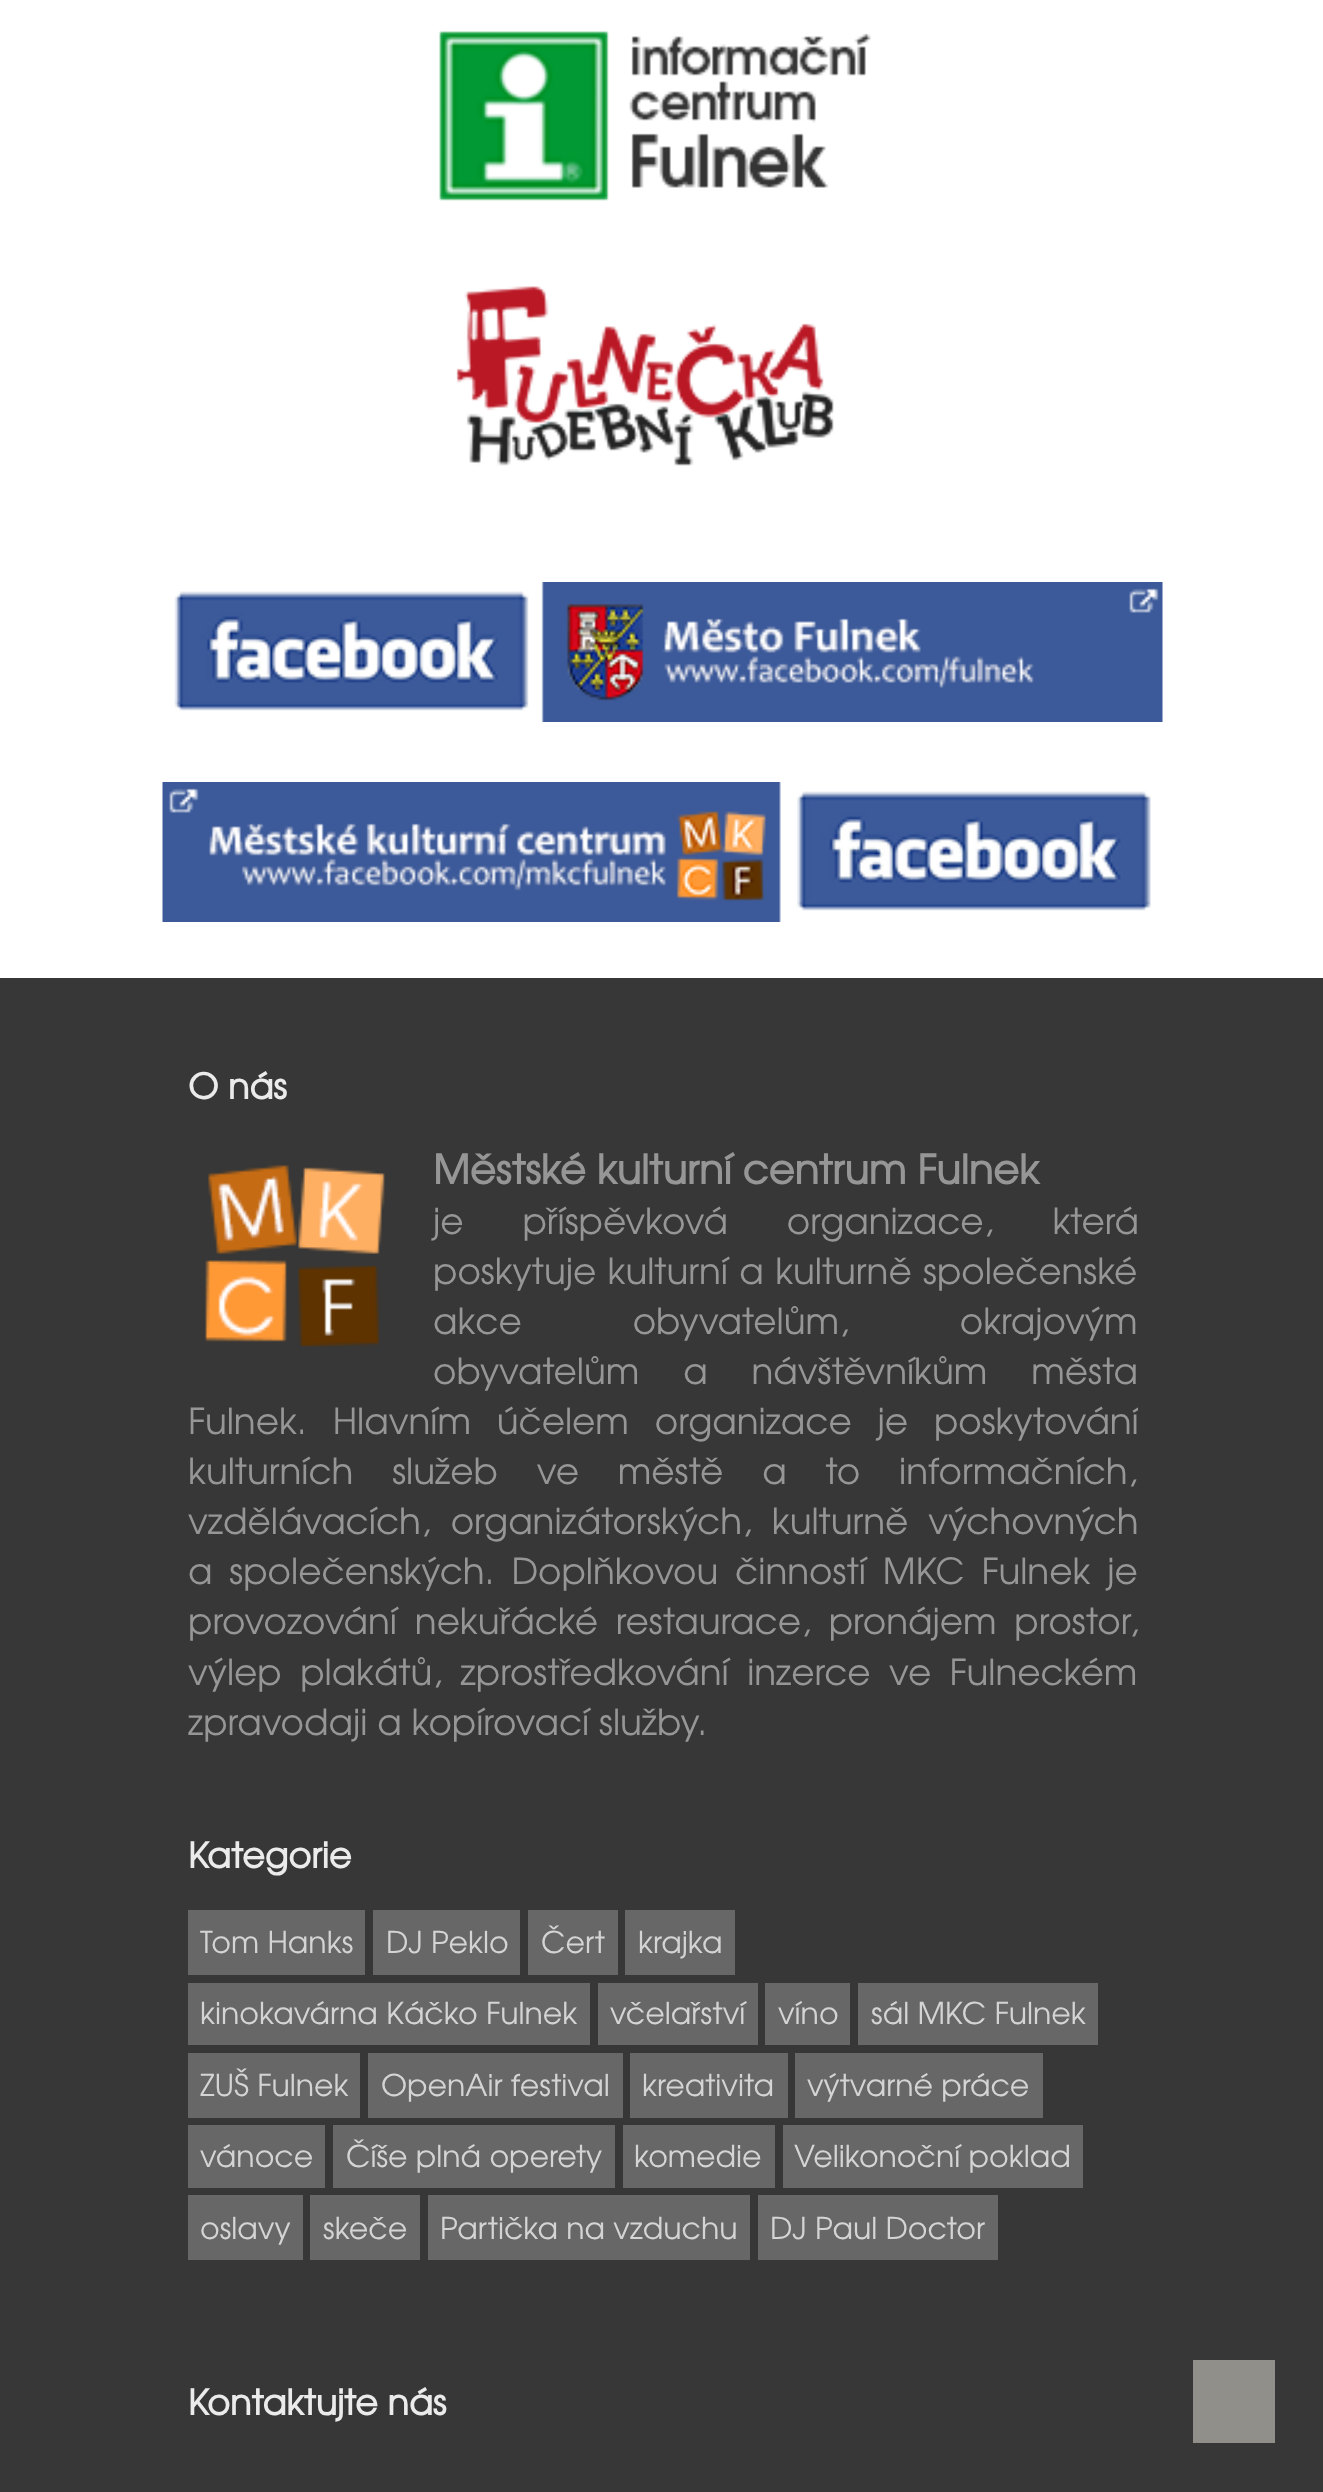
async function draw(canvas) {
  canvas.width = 1323
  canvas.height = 2492
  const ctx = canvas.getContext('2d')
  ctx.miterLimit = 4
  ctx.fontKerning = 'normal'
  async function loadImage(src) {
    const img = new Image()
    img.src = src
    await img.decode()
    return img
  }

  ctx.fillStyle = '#fff'
  ctx.fillRect(0, 0, 1323, 2492)
  ctx.drawImage(await loadImage('image0.png'), 439, 31, 432, 170)
  ctx.drawImage(await loadImage('image1.png'), 456, 286, 378, 180)
  ctx.drawImage(await loadImage('image2.png'), 174, 582, 989, 140)
  ctx.drawImage(await loadImage('image3.png'), 162, 782, 989, 140)
  ctx.fillStyle = '#373737'
  ctx.fillRect(0, 978, 1323, 1514)
  ctx.font = 'bold 35px TeX Gyre Adventor'
  ctx.fillStyle = '#ebebeb'
  ctx.fillText('O nás', 188, 1099)
  ctx.drawImage(await loadImage('image4.png'), 205, 1165, 180, 182)
  ctx.font = 'bold 40px TeX Gyre Adventor'
  ctx.fillStyle = '#969696'
  ctx.fillText('Městské kulturní centrum Fulnek', 433, 1184)
  ctx.wordSpacing = '49px'
  ctx.font = '35.75px TeX Gyre Adventor'
  ctx.fillText('je příspěvková organizace, která', 433, 1234)
  ctx.wordSpacing = '1.5px'
  ctx.fillText('poskytuje kulturní a kulturně společenské', 433, 1284)
  ctx.wordSpacing = '101px'
  ctx.fillText('akce obyvatelům, okrajovým', 433, 1334)
  ctx.wordSpacing = '34px'
  ctx.fillText('obyvatelům a návštěvníkům města', 433, 1384)
  ctx.save()
  ctx.beginPath()
  ctx.rect(188, 1143, 950, 645)
  ctx.clip()
  ctx.wordSpacing = '16px'
  ctx.fillText('Fulnek. Hlavním účelem organizace je poskytování', 188, 1434)
  ctx.restore()
  ctx.wordSpacing = '29px'
  ctx.fillText('kulturních služeb ve městě a to informačních,', 188, 1484)
  ctx.wordSpacing = '10px'
  ctx.fillText('vzdělávacích, organizátorských, kulturně výchovných', 188, 1534)
  ctx.wordSpacing = '7px'
  ctx.fillText('a společenských. Doplňkovou činností MKC Fulnek je', 188, 1584)
  ctx.wordSpacing = '8px'
  ctx.fillText('provozování nekuřácké restaurace, pronájem prostor,', 188, 1634)
  ctx.wordSpacing = '8.5px'
  ctx.fillText('výlep plakátů, zprostředkování inzerce ve Fulneckém', 188, 1685)
  ctx.save()
  ctx.beginPath()
  ctx.rect(188, 1143, 950, 645)
  ctx.clip()
  ctx.wordSpacing = '0px'
  ctx.fillText('zpravodaji a kopírovací služby.', 188, 1735)
  ctx.restore()
  ctx.wordSpacing = '0px'
  ctx.font = 'bold 35px TeX Gyre Adventor'
  ctx.fillStyle = '#ebebeb'
  ctx.fillText('Kategorie', 188, 1868)
  ctx.fillStyle = '#676767'
  ctx.fillRect(188, 1910, 177, 65)
  ctx.font = '30px TeX Gyre Adventor'
  ctx.fillStyle = '#d4d4d4'
  ctx.fillText('Tom Hanks', 200, 1953)
  ctx.fillStyle = '#676767'
  ctx.fillRect(373, 1910, 147, 65)
  ctx.fillStyle = '#d4d4d4'
  ctx.fillText('DJ Peklo', 386, 1953)
  ctx.fillStyle = '#676767'
  ctx.fillRect(528, 1910, 90, 65)
  ctx.fillStyle = '#d4d4d4'
  ctx.fillText('Čert', 541, 1953)
  ctx.fillStyle = '#676767'
  ctx.fillRect(625, 1910, 110, 65)
  ctx.fillStyle = '#d4d4d4'
  ctx.fillText('krajka', 638, 1953)
  ctx.fillStyle = '#676767'
  ctx.fillRect(188, 1983, 402, 62)
  ctx.fillStyle = '#d4d4d4'
  ctx.fillText('kinokavárna Káčko Fulnek', 200, 2024)
  ctx.fillStyle = '#676767'
  ctx.fillRect(598, 1983, 160, 62)
  ctx.fillStyle = '#d4d4d4'
  ctx.fillText('včelařství', 610, 2024)
  ctx.fillStyle = '#676767'
  ctx.fillRect(765, 1983, 85, 62)
  ctx.fillStyle = '#d4d4d4'
  ctx.fillText('víno', 778, 2024)
  ctx.fillStyle = '#676767'
  ctx.fillRect(858, 1983, 240, 62)
  ctx.fillStyle = '#d4d4d4'
  ctx.fillText('sál MKC Fulnek', 871, 2024)
  ctx.fillStyle = '#676767'
  ctx.fillRect(188, 2053, 172, 65)
  ctx.fillStyle = '#d4d4d4'
  ctx.fillText('ZUŠ Fulnek', 200, 2096)
  ctx.fillStyle = '#676767'
  ctx.fillRect(368, 2053, 255, 65)
  ctx.fillStyle = '#d4d4d4'
  ctx.fillText('OpenAir festival', 381, 2096)
  ctx.fillStyle = '#676767'
  ctx.fillRect(630, 2053, 158, 65)
  ctx.fillStyle = '#d4d4d4'
  ctx.fillText('kreativita', 642, 2096)
  ctx.fillStyle = '#676767'
  ctx.fillRect(795, 2053, 248, 65)
  ctx.fillStyle = '#d4d4d4'
  ctx.fillText('výtvarné práce', 807, 2096)
  ctx.fillStyle = '#676767'
  ctx.fillRect(188, 2125, 137, 63)
  ctx.fillStyle = '#d4d4d4'
  ctx.fillText('vánoce', 200, 2167)
  ctx.fillStyle = '#676767'
  ctx.fillRect(333, 2125, 282, 63)
  ctx.fillStyle = '#d4d4d4'
  ctx.fillText('Číše plná operety', 346, 2167)
  ctx.fillStyle = '#676767'
  ctx.fillRect(623, 2125, 152, 63)
  ctx.fillStyle = '#d4d4d4'
  ctx.fillText('komedie', 634, 2167)
  ctx.fillStyle = '#676767'
  ctx.fillRect(783, 2125, 300, 63)
  ctx.fillStyle = '#d4d4d4'
  ctx.fillText('Velikonoční poklad', 794, 2167)
  ctx.fillStyle = '#676767'
  ctx.fillRect(188, 2195, 115, 65)
  ctx.fillStyle = '#d4d4d4'
  ctx.fillText('oslavy', 200, 2239)
  ctx.fillStyle = '#676767'
  ctx.fillRect(310, 2195, 110, 65)
  ctx.fillStyle = '#d4d4d4'
  ctx.fillText('skeče', 323, 2239)
  ctx.fillStyle = '#676767'
  ctx.fillRect(428, 2195, 322, 65)
  ctx.fillStyle = '#d4d4d4'
  ctx.fillText('Partička na vzduchu', 440, 2239)
  ctx.fillStyle = '#676767'
  ctx.fillRect(758, 2195, 240, 65)
  ctx.fillStyle = '#d4d4d4'
  ctx.fillText('DJ Paul Doctor', 770, 2239)
  ctx.font = 'bold 35px TeX Gyre Adventor'
  ctx.fillStyle = '#ebebeb'
  ctx.fillText('Kontaktujte nás', 188, 2415)
  ctx.fillStyle = '#918f89'
  ctx.fillRect(1193, 2360, 82, 83)
}

draw(document.querySelector('canvas'))
